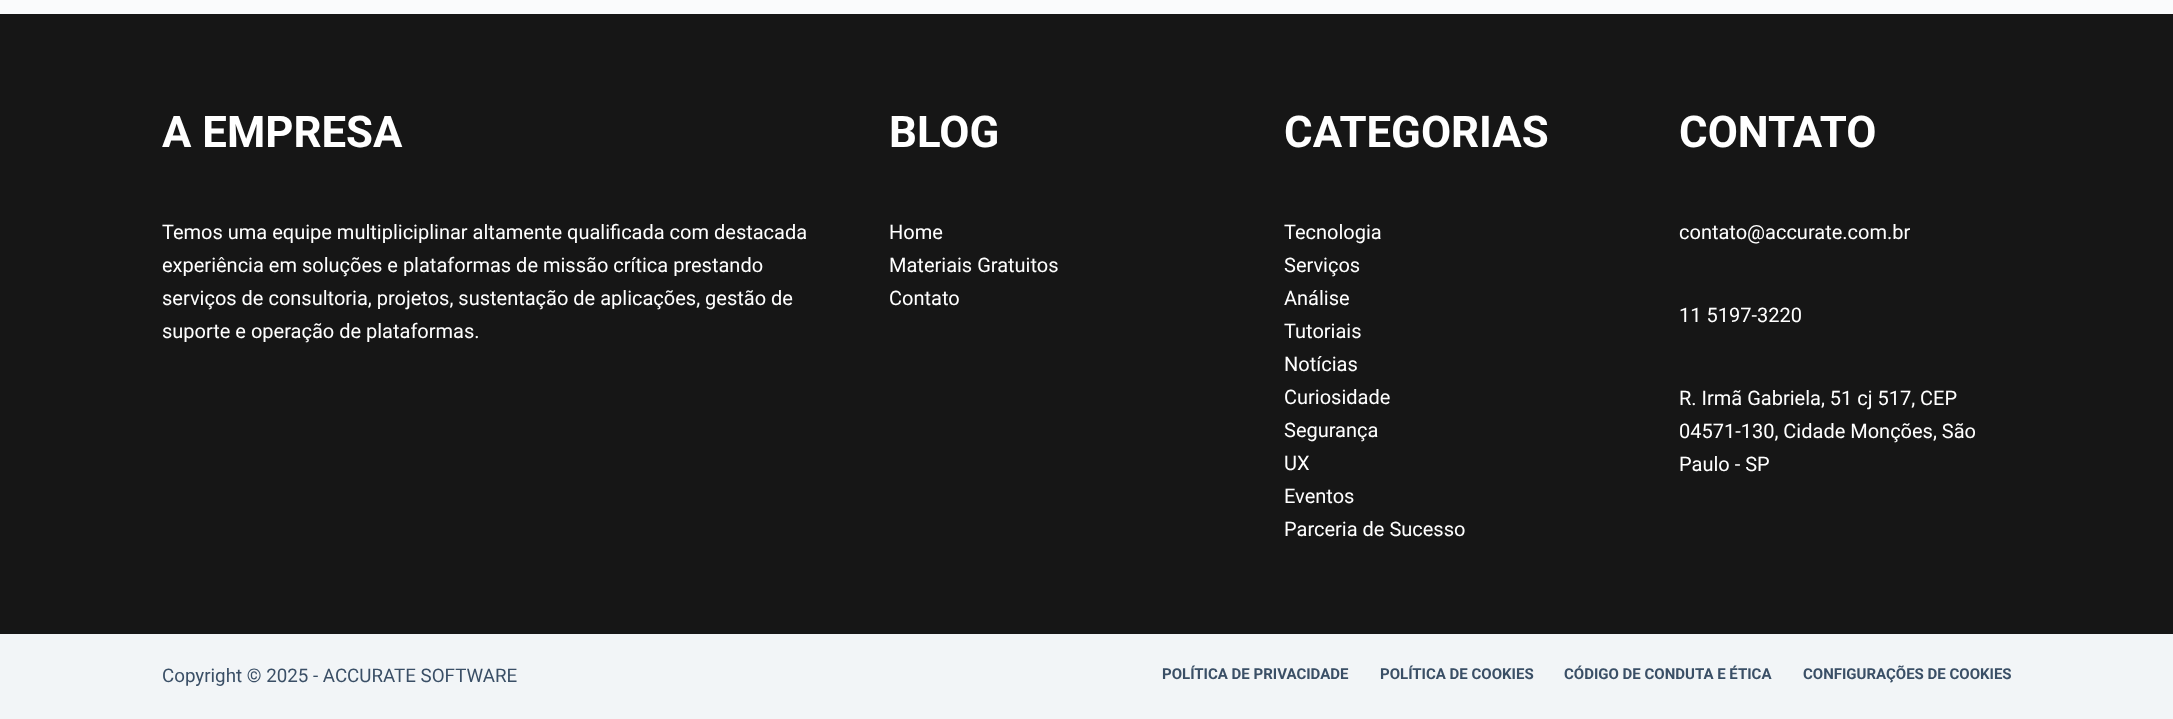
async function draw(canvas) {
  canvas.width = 2173
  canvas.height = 719
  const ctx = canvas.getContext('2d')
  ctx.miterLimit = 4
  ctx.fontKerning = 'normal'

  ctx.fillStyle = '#fafbfc'
  ctx.fillRect(0, 0, 2173, 719)
  ctx.fillStyle = '#f2f5f7'
  ctx.fillRect(0, 634, 2173, 85)
  ctx.fillStyle = '#161616'
  ctx.fillRect(0, 14, 2173, 620)
  ctx.font = 'bold 43.75px Roboto'
  ctx.fillStyle = '#fff'
  ctx.fillText('A EMPRESA', 162, 147)
  ctx.font = '20px Roboto'
  ctx.fillText('Temos uma equipe multipliciplinar altamente qualificada com destacada', 162, 239)
  ctx.fillText('experiência em soluções e plataformas de missão crítica prestando', 162, 272)
  ctx.fillText('serviços de consultoria, projetos, sustentação de aplicações, gestão de', 162, 305)
  ctx.fillText('suporte e operação de plataformas.', 162, 338)
  ctx.font = 'bold 43.75px Roboto'
  ctx.fillText('BLOG', 889, 147)
  ctx.font = '20px Roboto'
  ctx.fillText('Home', 889, 239)
  ctx.fillText('Materiais Gratuitos', 889, 272)
  ctx.fillText('Contato', 889, 305)
  ctx.font = 'bold 43.75px Roboto'
  ctx.fillText('CATEGORIAS', 1284, 147)
  ctx.font = '20px Roboto'
  ctx.fillText('Tecnologia', 1284, 239)
  ctx.fillText('Serviços', 1284, 272)
  ctx.fillText('Análise', 1284, 305)
  ctx.fillText('Tutoriais', 1284, 338)
  ctx.fillText('Notícias', 1284, 371)
  ctx.fillText('Curiosidade', 1284, 404)
  ctx.fillText('Segurança', 1284, 437)
  ctx.fillText('UX', 1284, 470)
  ctx.fillText('Eventos', 1284, 503)
  ctx.fillText('Parceria de Sucesso', 1284, 536)
  ctx.font = 'bold 43.75px Roboto'
  ctx.fillText('CONTATO', 1679, 147)
  ctx.font = '20px Roboto'
  ctx.fillText('contato@accurate.com.br', 1679, 239)
  ctx.fillText('11 5197-3220', 1679, 322)
  ctx.fillText('R. Irmã Gabriela, 51 cj 517, CEP', 1679, 405)
  ctx.fillText('04571-130, Cidade Monções, São', 1679, 438)
  ctx.fillText('Paulo - SP', 1679, 471)
  ctx.font = '18.75px Roboto'
  ctx.fillStyle = '#3a4f66'
  ctx.fillText('Copyright © 2025 - ACCURATE SOFTWARE', 162, 682)
  ctx.font = 'bold 15px Roboto'
  ctx.fillText('POLÍTICA DE PRIVACIDADE', 1162, 679)
  ctx.fillText('POLÍTICA DE COOKIES', 1380, 679)
  ctx.fillText('CÓDIGO DE CONDUTA E ÉTICA', 1564, 679)
  ctx.fillText('CONFIGURAÇÕES DE COOKIES', 1803, 679)
}

draw(document.querySelector('canvas'))
